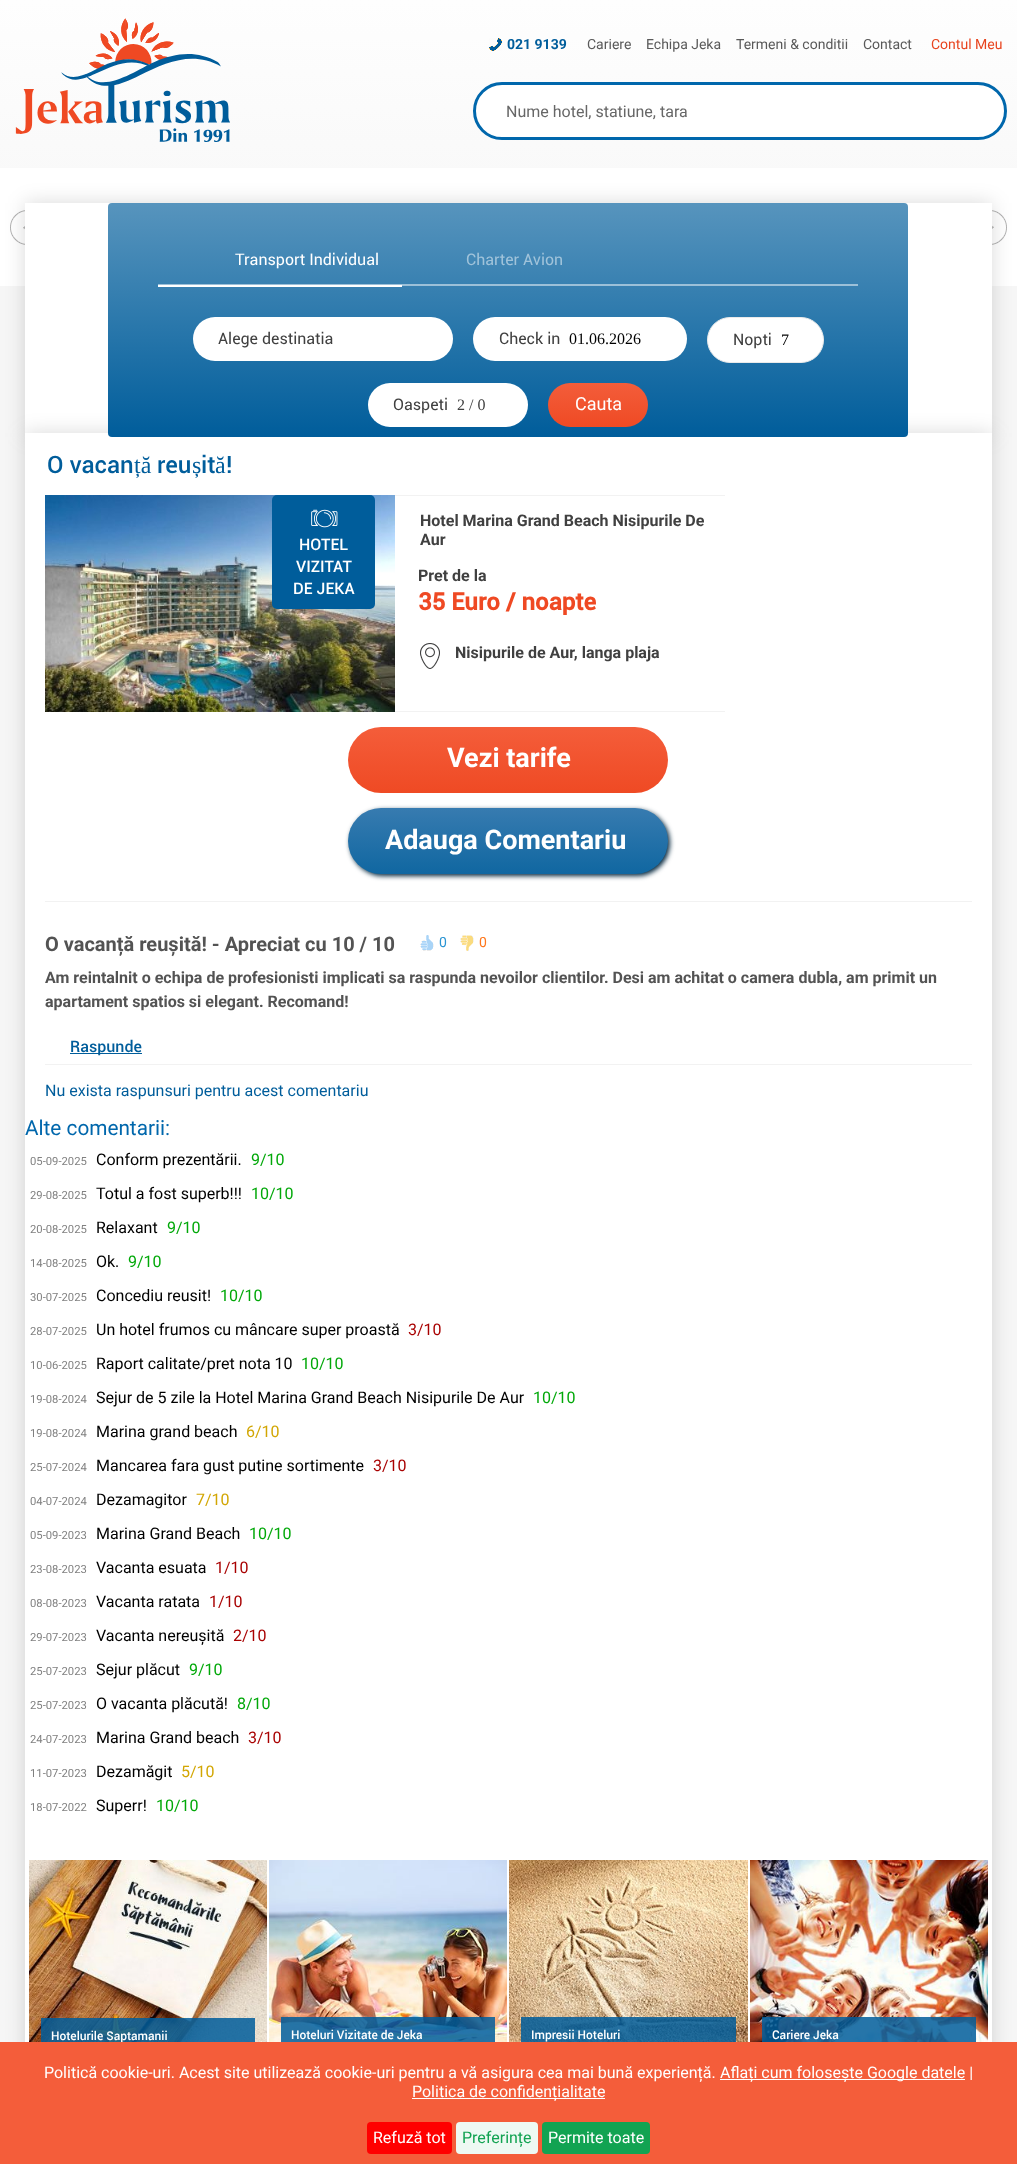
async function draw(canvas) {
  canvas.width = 1017
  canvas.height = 2164
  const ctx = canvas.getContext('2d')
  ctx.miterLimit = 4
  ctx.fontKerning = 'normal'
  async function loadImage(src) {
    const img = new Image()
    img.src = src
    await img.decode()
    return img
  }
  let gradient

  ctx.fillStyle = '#f6f6f6'
  ctx.fillRect(0, 0, 1017, 2164)
  gradient = ctx.createLinearGradient(509, 0, 509, 286)
  gradient.addColorStop(0, '#fefefe')
  gradient.addColorStop(1, '#f6f6f6')
  ctx.fillStyle = gradient
  ctx.fillRect(0, 0, 1017, 168)
  ctx.drawImage(await loadImage('image0.png'), 15, 18, 215, 124)
  ctx.drawImage(await loadImage('image1.png'), 489, 38, 13, 13)
  ctx.font = 'bold 14px Roboto'
  ctx.fillStyle = '#005d9b'
  ctx.fillText('021 9139', 507, 49)
  ctx.font = '14px Roboto'
  ctx.fillStyle = '#595959'
  ctx.fillText('Cariere', 587, 49)
  ctx.fillText('Echipa Jeka', 646, 49)
  ctx.fillText('Termeni & conditii', 736, 49)
  ctx.fillText('Contact', 863, 49)
  ctx.fillStyle = '#e8441e'
  ctx.fillText('Contul Meu', 931, 49)
  ctx.fillStyle = '#fff'
  ctx.beginPath()
  ctx.roundRect(474.5, 83.5, 531, 55, 27.5)
  ctx.fill()
  ctx.strokeStyle = '#0067ac'
  ctx.lineWidth = 3
  ctx.stroke()
  ctx.font = '16px Roboto'
  ctx.fillStyle = '#676767'
  ctx.fillText('Nume hotel, statiune, tara', 506, 117)
  ctx.fillStyle = '#fff'
  ctx.fillRect(0, 168, 1017, 118)
  ctx.drawImage(await loadImage('image2.png'), 10, 210, 15, 35)
  ctx.drawImage(await loadImage('image3.png'), 992, 210, 15, 35)
  ctx.fillStyle = '#05050626'
  ctx.filter = 'blur(10px)'
  ctx.beginPath()
  ctx.rect(25, 203, 967, 234)
  ctx.fill()
  ctx.filter = 'none'
  ctx.fillStyle = '#fff'
  ctx.fillRect(25, 203, 967, 230)
  ctx.fillStyle = '#05050626'
  ctx.filter = 'blur(10px)'
  ctx.beginPath()
  ctx.rect(25, 433, 967, 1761)
  ctx.fill()
  ctx.filter = 'none'
  ctx.fillStyle = '#fff'
  ctx.fillRect(25, 433, 967, 1609)
  gradient = ctx.createLinearGradient(508, 203, 508, 437)
  gradient.addColorStop(0, '#005d9ba8')
  gradient.addColorStop(1, '#005d9b')
  ctx.fillStyle = gradient
  ctx.beginPath()
  ctx.roundRect(108, 203, 800, 234, 4)
  ctx.fill()
  ctx.fillStyle = '#fff'
  ctx.fillRect(158, 285, 244, 2)
  ctx.font = '16px "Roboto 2"'
  ctx.fillText('Transport Individual', 235, 265)
  ctx.fillStyle = '#a0c3da'
  ctx.fillText('Charter Avion', 466, 265)
  ctx.fillStyle = '#ffffff80'
  ctx.fillRect(158, 284, 700, 2)
  ctx.fillStyle = '#fff'
  ctx.beginPath()
  ctx.roundRect(193, 317, 260, 44, 22)
  ctx.fill()
  ctx.fillStyle = '#404040'
  ctx.fillText('Alege destinatia', 218, 344)
  ctx.fillStyle = '#fff'
  ctx.beginPath()
  ctx.roundRect(473, 317, 214, 44, 22)
  ctx.fill()
  ctx.fillStyle = '#404040'
  ctx.fillText('Check in', 499, 344)
  ctx.font = '16px Liberation Serif'
  ctx.fillStyle = '#000'
  ctx.fillText('01.06.2026', 569, 344)
  ctx.fillStyle = '#fff'
  ctx.beginPath()
  ctx.roundRect(707.5, 317.5, 116, 45, 22.5)
  ctx.fill()
  ctx.strokeStyle = '#eaeaea'
  ctx.lineWidth = 1
  ctx.stroke()
  ctx.font = '16px "Roboto 2"'
  ctx.fillStyle = '#404040'
  ctx.fillText('Nopti', 733, 345)
  ctx.font = '16px Liberation Serif'
  ctx.fillStyle = '#000'
  ctx.fillText('7', 781, 345)
  ctx.fillStyle = '#fff'
  ctx.beginPath()
  ctx.roundRect(368, 383, 160, 44, 22)
  ctx.fill()
  ctx.font = '16px "Roboto 2"'
  ctx.fillStyle = '#404040'
  ctx.fillText('Oaspeti', 393, 410)
  ctx.font = '16px Liberation Serif'
  ctx.fillText('2 / 0', 457, 410)
  gradient = ctx.createLinearGradient(598, 383, 598, 427)
  gradient.addColorStop(0, '#f35d3a')
  gradient.addColorStop(1, '#ef4a24')
  ctx.fillStyle = gradient
  ctx.beginPath()
  ctx.roundRect(548, 383, 100, 44, 22)
  ctx.fill()
  ctx.font = '18px Roboto'
  ctx.fillStyle = '#fff'
  ctx.fillText('Cauta', 575, 410)
  ctx.font = '500 24px Roboto'
  ctx.fillStyle = '#005d9b'
  ctx.fillText('O vacan', 47, 473)
  ctx.font = '24px Liberation Serif'
  ctx.fillText('ță', 134, 473)
  ctx.font = '500 24px Roboto'
  ctx.fillText('reu', 157, 473)
  ctx.font = '24px Liberation Serif'
  ctx.fillText('ș', 192, 473)
  ctx.font = '500 24px Roboto'
  ctx.fillText('it', 201, 473)
  ctx.font = '24px Liberation Serif'
  ctx.fillText('ă', 215, 473)
  ctx.font = '500 24px Roboto'
  ctx.fillText('!', 226, 473)
  ctx.drawImage(await loadImage('image4.png'), 45, 495, 350, 217)
  ctx.beginPath()
  ctx.roundRect(272, 495, 103, 114, 5)
  ctx.fill()
  ctx.drawImage(await loadImage('image5.png'), 311, 509, 27, 19)
  ctx.font = '500 16px Roboto'
  ctx.fillStyle = '#fff'
  ctx.fillText('HOTEL', 299, 550)
  ctx.fillText('VIZITAT', 296, 572)
  ctx.fillText('DE JEKA', 293, 594)
  ctx.fillStyle = '#f2f2f2'
  ctx.fillRect(395, 495, 330, 1)
  ctx.fillRect(395, 711, 330, 1)
  ctx.font = 'bold 16px Roboto'
  ctx.fillStyle = '#404040'
  ctx.fillText('Hotel Marina Grand Beach Nisipurile De', 420, 526)
  ctx.fillText('Aur', 420, 545)
  ctx.fillText('Pret de la', 418, 581)
  ctx.font = 'bold 24px "Roboto 2"'
  ctx.fillStyle = '#ef4923'
  ctx.fillText('35 Euro / noapte', 418, 610)
  ctx.drawImage(await loadImage('image6.png'), 420, 643, 20, 26)
  ctx.font = 'bold 16px Roboto'
  ctx.fillStyle = '#404040'
  ctx.fillText('Nisipurile de Aur, langa plaja', 455, 658)
  ctx.fillStyle = '#f2f2f2'
  ctx.fillRect(45, 901, 927, 1)
  gradient = ctx.createLinearGradient(508, 727, 508, 793)
  gradient.addColorStop(0, '#f45d3a')
  gradient.addColorStop(1, '#ef4a24')
  ctx.fillStyle = gradient
  ctx.beginPath()
  ctx.roundRect(348, 727, 320, 66, 33)
  ctx.fill()
  ctx.font = 'bold 27px Roboto'
  ctx.fillStyle = '#fff'
  ctx.fillText('Vezi tarife', 447, 767)
  ctx.fillStyle = '#04273e'
  ctx.filter = 'blur(2.5px)'
  ctx.beginPath()
  ctx.roundRect(350, 810, 320, 66, 33)
  ctx.fill()
  ctx.filter = 'none'
  gradient = ctx.createLinearGradient(508, 808, 508, 874)
  gradient.addColorStop(0, '#377bb0')
  gradient.addColorStop(1, '#1067a1')
  ctx.fillStyle = gradient
  ctx.beginPath()
  ctx.roundRect(348, 808, 320, 66, 33)
  ctx.fill()
  ctx.fillStyle = '#fff'
  ctx.fillText('Adauga Comentariu', 385, 849)
  ctx.fillStyle = '#f2f2f2'
  ctx.fillRect(45, 1064, 927, 1)
  ctx.font = 'bold 20px Roboto'
  ctx.fillStyle = '#535353'
  ctx.fillText('O vacanță reușită! - Apreciat cu 10 / 10', 45, 951)
  ctx.drawImage(await loadImage('image7.png'), 420, 935, 14, 16)
  ctx.font = '14px Roboto'
  ctx.fillStyle = '#2b95d3'
  ctx.fillText('0', 439, 947)
  ctx.drawImage(await loadImage('image8.png'), 460, 935, 14, 16)
  ctx.fillStyle = '#fe771d'
  ctx.fillText('0', 479, 947)
  ctx.font = 'bold 16px Roboto'
  ctx.fillStyle = '#535353'
  ctx.fillText('Am reintalnit o echipa de profesionisti implicati sa raspunda nevoilor clientilor. Desi am achitat o camera dubla, am primit un', 45, 983)
  ctx.fillText('apartament spatios si elegant. Recomand!', 45, 1007)
  ctx.fillStyle = '#005d9b'
  ctx.fillRect(70, 1053, 72, 1)
  ctx.font = '500 16px Roboto'
  ctx.fillText('Raspunde', 70, 1052)
  ctx.font = '16px Roboto'
  ctx.fillText('Nu exista raspunsuri pentru acest comentariu', 45, 1096)
  ctx.font = '20.75px Roboto'
  ctx.fillStyle = '#0067ac'
  ctx.fillText('Alte comentarii:', 25, 1135)
  ctx.font = '11.25px Roboto'
  ctx.fillStyle = '#808080'
  ctx.fillText('05-09-2025', 30, 1165)
  ctx.font = '16px Roboto'
  ctx.fillStyle = '#000'
  ctx.fillText('Conform prezentării.', 96, 1165)
  ctx.fillStyle = '#00a808'
  ctx.fillText('9/10', 251, 1165)
  ctx.font = '11.25px Roboto'
  ctx.fillStyle = '#808080'
  ctx.fillText('29-08-2025', 30, 1199)
  ctx.font = '16px Roboto'
  ctx.fillStyle = '#000'
  ctx.fillText('Totul a fost superb!!!', 96, 1199)
  ctx.fillStyle = '#00a808'
  ctx.fillText('10/10', 251, 1199)
  ctx.font = '11.25px Roboto'
  ctx.fillStyle = '#808080'
  ctx.fillText('20-08-2025', 30, 1233)
  ctx.font = '16px Roboto'
  ctx.fillStyle = '#000'
  ctx.fillText('Relaxant', 96, 1233)
  ctx.fillStyle = '#00a808'
  ctx.fillText('9/10', 167, 1233)
  ctx.font = '11.25px Roboto'
  ctx.fillStyle = '#808080'
  ctx.fillText('14-08-2025', 30, 1267)
  ctx.font = '16px Roboto'
  ctx.fillStyle = '#000'
  ctx.fillText('Ok.', 96, 1267)
  ctx.fillStyle = '#00a808'
  ctx.fillText('9/10', 128, 1267)
  ctx.font = '11.25px Roboto'
  ctx.fillStyle = '#808080'
  ctx.fillText('30-07-2025', 30, 1301)
  ctx.font = '16px Roboto'
  ctx.fillStyle = '#000'
  ctx.fillText('Concediu reusit!', 96, 1301)
  ctx.fillStyle = '#00a808'
  ctx.fillText('10/10', 220, 1301)
  ctx.font = '11.25px Roboto'
  ctx.fillStyle = '#808080'
  ctx.fillText('28-07-2025', 30, 1335)
  ctx.font = '16px Roboto'
  ctx.fillStyle = '#000'
  ctx.fillText('Un hotel frumos cu mâncare super proastă', 96, 1335)
  ctx.fillStyle = '#a80000'
  ctx.fillText('3/10', 408, 1335)
  ctx.font = '11.25px Roboto'
  ctx.fillStyle = '#808080'
  ctx.fillText('10-06-2025', 30, 1369)
  ctx.font = '16px Roboto'
  ctx.fillStyle = '#000'
  ctx.fillText('Raport calitate/pret nota 10', 96, 1369)
  ctx.fillStyle = '#00a808'
  ctx.fillText('10/10', 301, 1369)
  ctx.font = '11.25px Roboto'
  ctx.fillStyle = '#808080'
  ctx.fillText('19-08-2024', 30, 1403)
  ctx.font = '16px Roboto'
  ctx.fillStyle = '#000'
  ctx.fillText('Sejur de 5 zile la Hotel Marina Grand Beach Nisipurile De Aur', 96, 1403)
  ctx.fillStyle = '#00a808'
  ctx.fillText('10/10', 533, 1403)
  ctx.font = '11.25px Roboto'
  ctx.fillStyle = '#808080'
  ctx.fillText('19-08-2024', 30, 1437)
  ctx.font = '16px Roboto'
  ctx.fillStyle = '#000'
  ctx.fillText('Marina grand beach', 96, 1437)
  ctx.fillStyle = '#d2a603'
  ctx.fillText('6/10', 246, 1437)
  ctx.font = '11.25px Roboto'
  ctx.fillStyle = '#808080'
  ctx.fillText('25-07-2024', 30, 1471)
  ctx.font = '16px Roboto'
  ctx.fillStyle = '#000'
  ctx.fillText('Mancarea fara gust putine sortimente', 96, 1471)
  ctx.fillStyle = '#a80000'
  ctx.fillText('3/10', 373, 1471)
  ctx.font = '11.25px Roboto'
  ctx.fillStyle = '#808080'
  ctx.fillText('04-07-2024', 30, 1505)
  ctx.font = '16px Roboto'
  ctx.fillStyle = '#000'
  ctx.fillText('Dezamagitor', 96, 1505)
  ctx.fillStyle = '#d2a603'
  ctx.fillText('7/10', 196, 1505)
  ctx.font = '11.25px Roboto'
  ctx.fillStyle = '#808080'
  ctx.fillText('05-09-2023', 30, 1539)
  ctx.font = '16px Roboto'
  ctx.fillStyle = '#000'
  ctx.fillText('Marina Grand Beach', 96, 1539)
  ctx.fillStyle = '#00a808'
  ctx.fillText('10/10', 249, 1539)
  ctx.font = '11.25px Roboto'
  ctx.fillStyle = '#808080'
  ctx.fillText('23-08-2023', 30, 1573)
  ctx.font = '16px Roboto'
  ctx.fillStyle = '#000'
  ctx.fillText('Vacanta esuata', 96, 1573)
  ctx.fillStyle = '#a80000'
  ctx.fillText('1/10', 215, 1573)
  ctx.font = '11.25px Roboto'
  ctx.fillStyle = '#808080'
  ctx.fillText('08-08-2023', 30, 1607)
  ctx.font = '16px Roboto'
  ctx.fillStyle = '#000'
  ctx.fillText('Vacanta ratata', 96, 1607)
  ctx.fillStyle = '#a80000'
  ctx.fillText('1/10', 209, 1607)
  ctx.font = '11.25px Roboto'
  ctx.fillStyle = '#808080'
  ctx.fillText('29-07-2023', 30, 1641)
  ctx.font = '16px Roboto'
  ctx.fillStyle = '#000'
  ctx.fillText('Vacanta nereușită', 96, 1641)
  ctx.fillStyle = '#a80000'
  ctx.fillText('2/10', 233, 1641)
  ctx.font = '11.25px Roboto'
  ctx.fillStyle = '#808080'
  ctx.fillText('25-07-2023', 30, 1675)
  ctx.font = '16px Roboto'
  ctx.fillStyle = '#000'
  ctx.fillText('Sejur plăcut', 96, 1675)
  ctx.fillStyle = '#00a808'
  ctx.fillText('9/10', 189, 1675)
  ctx.font = '11.25px Roboto'
  ctx.fillStyle = '#808080'
  ctx.fillText('25-07-2023', 30, 1709)
  ctx.font = '16px Roboto'
  ctx.fillStyle = '#000'
  ctx.fillText('O vacanta plăcută!', 96, 1709)
  ctx.fillStyle = '#00a808'
  ctx.fillText('8/10', 237, 1709)
  ctx.font = '11.25px Roboto'
  ctx.fillStyle = '#808080'
  ctx.fillText('24-07-2023', 30, 1743)
  ctx.font = '16px Roboto'
  ctx.fillStyle = '#000'
  ctx.fillText('Marina Grand beach', 96, 1743)
  ctx.fillStyle = '#a80000'
  ctx.fillText('3/10', 248, 1743)
  ctx.font = '11.25px Roboto'
  ctx.fillStyle = '#808080'
  ctx.fillText('11-07-2023', 30, 1777)
  ctx.font = '16px Roboto'
  ctx.fillStyle = '#000'
  ctx.fillText('Dezamăgit', 96, 1777)
  ctx.fillStyle = '#d2a603'
  ctx.fillText('5/10', 181, 1777)
  ctx.font = '11.25px Roboto'
  ctx.fillStyle = '#808080'
  ctx.fillText('18-07-2022', 30, 1811)
  ctx.font = '16px Roboto'
  ctx.fillStyle = '#000'
  ctx.fillText('Superr!', 96, 1811)
  ctx.fillStyle = '#00a808'
  ctx.fillText('10/10', 156, 1811)
  ctx.drawImage(await loadImage('image9.png'), 29, 1860, 238, 182)
  ctx.fillStyle = '#005d9bd9'
  ctx.fillRect(41, 2018, 214, 24)
  ctx.font = '500 12px Roboto'
  ctx.fillStyle = '#fff'
  ctx.fillText('Hotelurile Saptamanii', 51, 2040)
  ctx.drawImage(await loadImage('image10.png'), 269, 1860, 238, 182)
  ctx.fillStyle = '#005d9bd9'
  ctx.fillRect(281, 2017, 214, 25)
  ctx.fillStyle = '#fff'
  ctx.fillText('Hoteluri Vizitate de Jeka', 291, 2039)
  ctx.drawImage(await loadImage('image11.png'), 509, 1860, 239, 182)
  ctx.fillStyle = '#005d9bd9'
  ctx.fillRect(521, 2017, 215, 25)
  ctx.fillStyle = '#fff'
  ctx.fillText('Impresii Hoteluri', 531, 2039)
  ctx.drawImage(await loadImage('image12.png'), 750, 1860, 238, 182)
  ctx.fillStyle = '#005d9bd9'
  ctx.fillRect(762, 2017, 214, 25)
  ctx.fillStyle = '#fff'
  ctx.fillText('Cariere Jeka', 772, 2039)
  ctx.fillStyle = '#f45d3a'
  ctx.fillRect(0, 2042, 1017, 122)
  ctx.font = '16px Roboto'
  ctx.fillStyle = '#fff'
  ctx.fillText('Politică cookie-uri. Acest site utilizează cookie-uri pentru a vă asigura cea mai bună experiență.', 44, 2078)
  ctx.fillRect(720, 2079, 245, 1)
  ctx.fillText('Aflați cum folosește Google datele |', 720, 2078)
  ctx.fillRect(412, 2098, 193, 1)
  ctx.fillText('Politica de confidențialitate', 412, 2097)
  ctx.fillStyle = '#f00'
  ctx.beginPath()
  ctx.roundRect(367, 2122, 85, 32, 4)
  ctx.fill()
  ctx.fillStyle = '#fff'
  ctx.fillText('Refuză tot', 373, 2143)
  ctx.fillStyle = '#eef9f3'
  ctx.beginPath()
  ctx.roundRect(456, 2122, 82, 32, 4)
  ctx.fill()
  ctx.fillStyle = '#12a352'
  ctx.fillText('Preferințe', 462, 2143)
  ctx.beginPath()
  ctx.roundRect(542, 2122, 108, 32, 4)
  ctx.fill()
  ctx.fillStyle = '#fff'
  ctx.fillText('Permite toate', 548, 2143)
}

draw(document.querySelector('canvas'))
